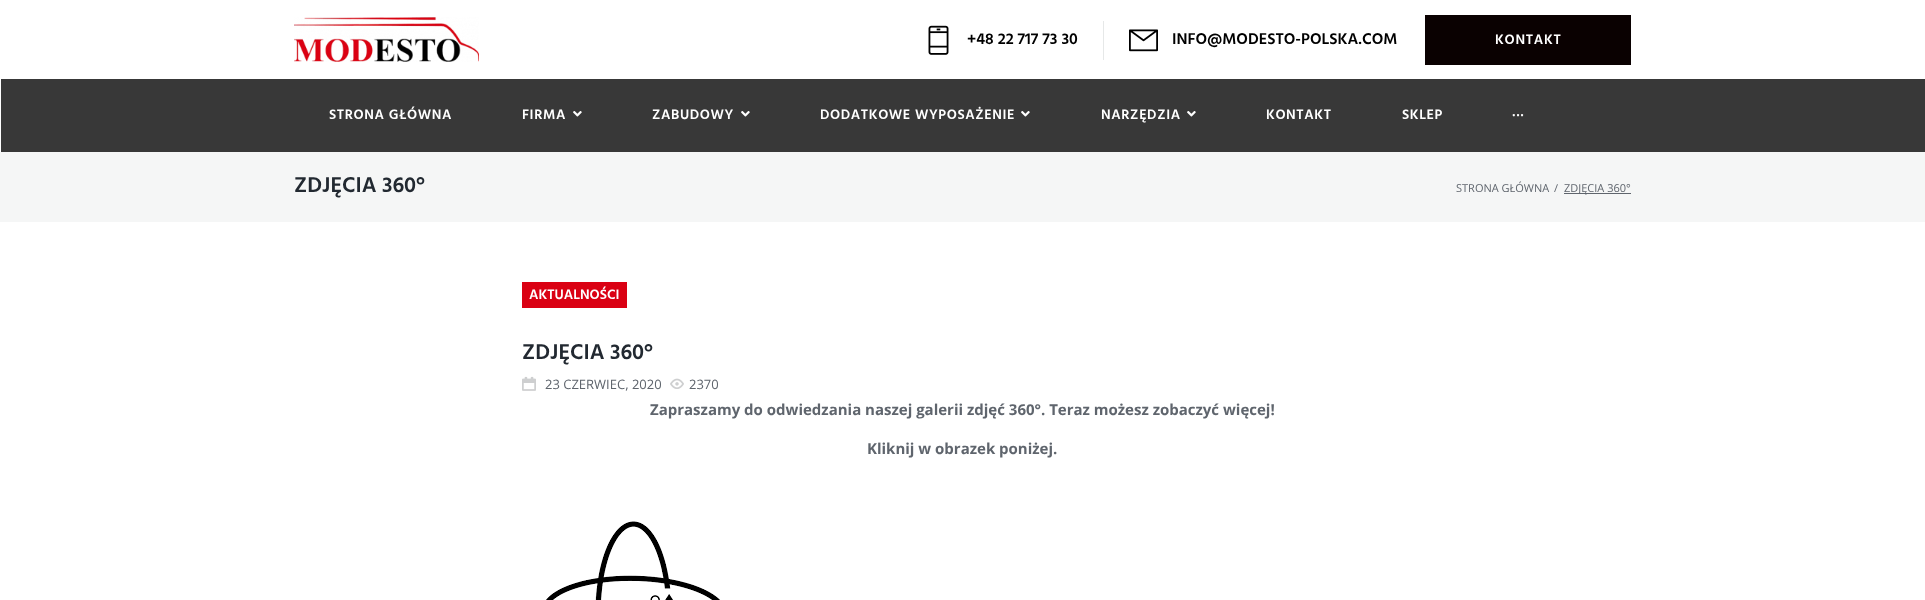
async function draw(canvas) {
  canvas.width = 1925
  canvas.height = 600
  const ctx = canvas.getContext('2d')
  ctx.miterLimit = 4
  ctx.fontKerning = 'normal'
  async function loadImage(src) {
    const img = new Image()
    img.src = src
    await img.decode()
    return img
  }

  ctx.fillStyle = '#fff'
  ctx.fillRect(0, 0, 1925, 600)
  ctx.drawImage(await loadImage('image0.png'), 294, 17, 185, 45)
  ctx.drawImage(await loadImage('image1.png'), 928, 25, 21, 30)
  ctx.font = '600 16px Hind'
  ctx.fillStyle = '#000'
  ctx.fillText('+48 22 717 73 30', 967, 44)
  ctx.fillStyle = '#e6e8e8'
  ctx.fillRect(1103, 21, 1, 39)
  ctx.drawImage(await loadImage('image2.png'), 1129, 29, 29, 23)
  ctx.fillStyle = '#000'
  ctx.fillText('INFO@MODESTO-POLSKA.COM', 1172, 44)
  ctx.fillStyle = '#0a0101'
  ctx.fillRect(1425, 15, 206, 50)
  ctx.letterSpacing = '0.75px'
  ctx.font = '600 14px Hind'
  ctx.fillStyle = '#fff'
  ctx.fillText('KONTAKT', 1495, 44)
  ctx.fillStyle = '#383838'
  ctx.fillRect(1, 79, 1924, 73)
  ctx.letterSpacing = '0.6px'
  ctx.fillStyle = '#fff'
  ctx.fillText('STRONA GŁÓWNA', 329, 119)
  ctx.fillText('FIRMA', 522, 119)
  ctx.drawImage(await loadImage('image3.png'), 573, 111, 9, 6)
  ctx.fillText('ZABUDOWY', 652, 119)
  ctx.drawImage(await loadImage('image3.png'), 741, 111, 9, 6)
  ctx.fillText('DODATKOWE WYPOSAŻENIE', 820, 119)
  ctx.drawImage(await loadImage('image3.png'), 1021, 111, 9, 6)
  ctx.fillText('NARZĘDZIA', 1101, 119)
  ctx.drawImage(await loadImage('image3.png'), 1187, 111, 9, 6)
  ctx.fillText('KONTAKT', 1266, 119)
  ctx.fillText('SKLEP', 1402, 119)
  ctx.fillText('···', 1512, 119)
  ctx.fillStyle = '#f5f6f6'
  ctx.fillRect(0, 152, 1925, 70)
  ctx.letterSpacing = '0px'
  ctx.font = '600 22px Hind'
  ctx.fillStyle = '#222931'
  ctx.fillText('ZDJĘCIA 360°', 294, 192)
  ctx.font = '11px Open Sans'
  ctx.fillStyle = '#5f656d'
  ctx.fillText('STRONA GŁÓWNA', 1456, 192)
  ctx.fillText('/', 1554, 192)
  ctx.fillRect(1564, 193, 67, 1)
  ctx.fillText('ZDJĘCIA 360°', 1564, 192)
  ctx.fillStyle = '#da0113'
  ctx.fillRect(522, 282, 105, 26)
  ctx.font = '600 14px Hind'
  ctx.fillStyle = '#fff'
  ctx.fillText('AKTUALNOŚCI', 529, 299)
  ctx.font = '600 22px Hind'
  ctx.fillStyle = '#222931'
  ctx.fillText('ZDJĘCIA 360°', 522, 359)
  ctx.drawImage(await loadImage('image4.png'), 522, 376, 14, 15)
  ctx.font = '13px Open Sans'
  ctx.fillStyle = '#5f656d'
  ctx.fillText('23 CZERWIEC, 2020', 545, 389)
  ctx.drawImage(await loadImage('image5.png'), 670, 378, 14, 11)
  ctx.fillText('2370', 689, 389)
  ctx.font = 'bold 15px Open Sans'
  ctx.fillText('Zapraszamy do odwiedzania naszej galerii zdjęć 360°. Teraz możesz zobaczyć więcej!', 650, 415)
  ctx.fillText('Kliknij w obrazek poniżej.', 867, 454)
  ctx.drawImage(await loadImage('image6.png'), 546, 521, 174, 79)
}

draw(document.querySelector('canvas'))
